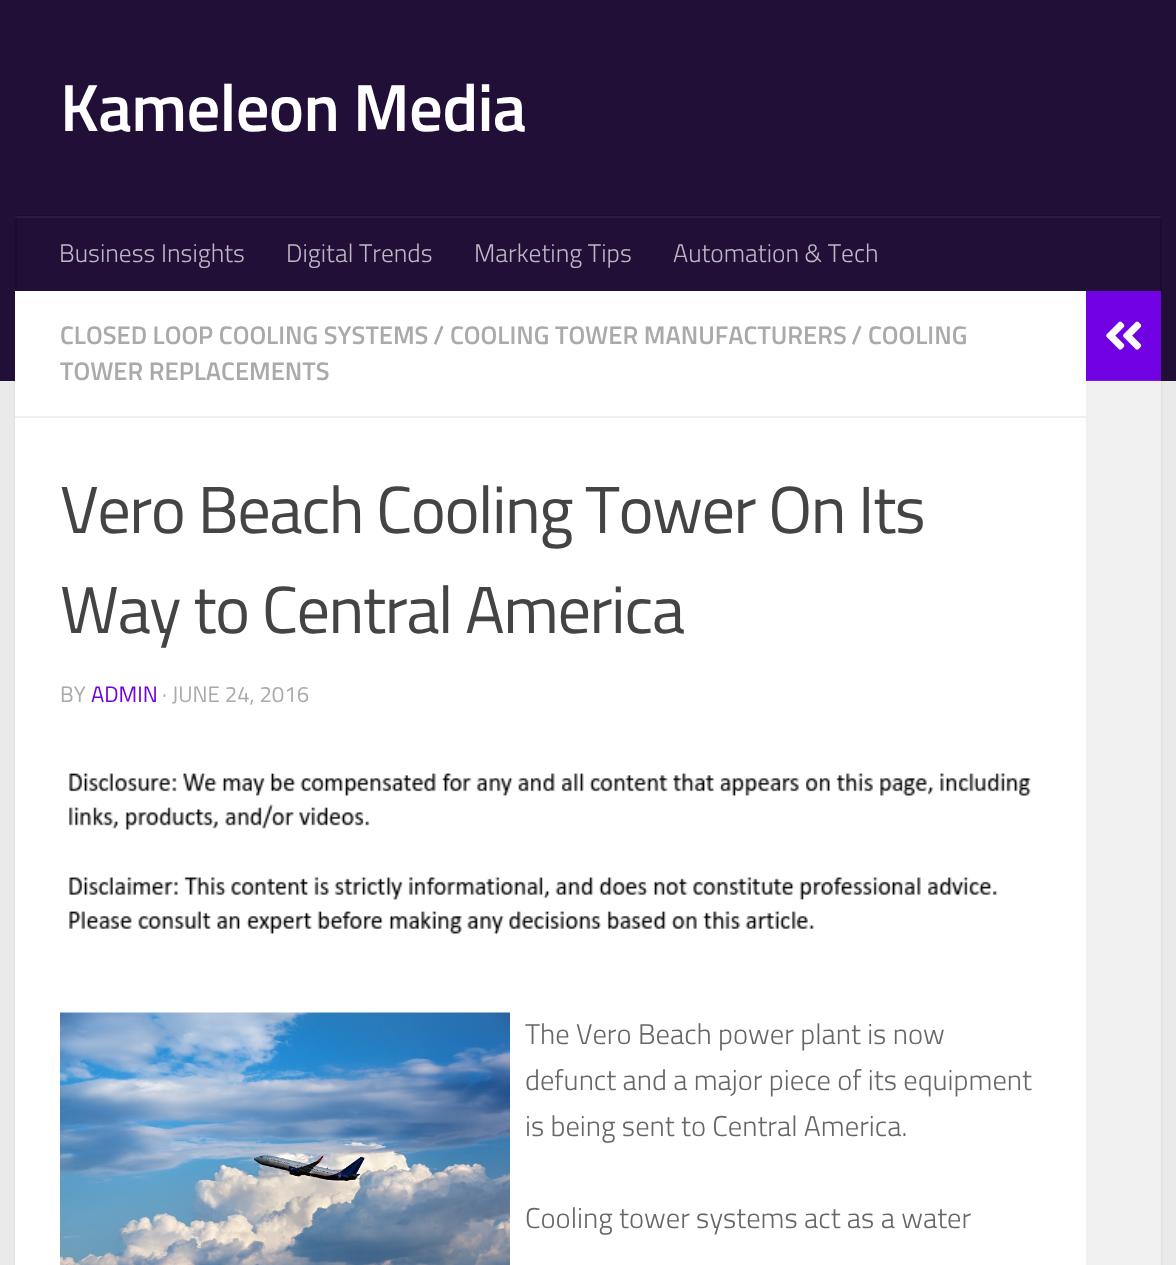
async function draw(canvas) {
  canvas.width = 1176
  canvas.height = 1265
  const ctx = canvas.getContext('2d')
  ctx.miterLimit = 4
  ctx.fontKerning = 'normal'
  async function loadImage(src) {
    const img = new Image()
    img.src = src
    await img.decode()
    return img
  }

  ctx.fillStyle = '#eaeaea'
  ctx.fillRect(0, 0, 1176, 1265)
  ctx.fillStyle = '#0000001a'
  ctx.filter = 'blur(1px)'
  ctx.beginPath()
  ctx.rect(15, 293, 1146, 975)
  ctx.fill()
  ctx.filter = 'none'
  ctx.fillStyle = '#210f37'
  ctx.fillRect(0, 0, 1176, 381)
  ctx.fillStyle = '#2c1b41'
  ctx.fillRect(15, 216, 1146, 2)
  ctx.letterSpacing = '-0.75px'
  ctx.font = '600 66.75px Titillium'
  ctx.fillStyle = '#fff'
  ctx.fillText('Kameleon Media', 60, 131)
  ctx.fillStyle = '#1a0c2c'
  ctx.fillRect(15, 215, 1146, 1)
  ctx.fillRect(1160, 216, 2, 75)
  ctx.fillStyle = '#251837'
  ctx.fillRect(1160, 216, 1, 2)
  ctx.fillStyle = '#1a0c2c'
  ctx.fillRect(15, 216, 2, 75)
  ctx.fillStyle = '#251837'
  ctx.fillRect(15, 216, 2, 2)
  ctx.letterSpacing = '0px'
  ctx.font = '300 25.5px Titillium'
  ctx.fillStyle = '#bcb7c3'
  ctx.fillText('Business Insights', 59, 262)
  ctx.fillText('Digital Trends', 286, 262)
  ctx.fillText('Marketing Tips', 474, 262)
  ctx.fillText('Automation & Tech', 673, 262)
  ctx.fillStyle = '#fff'
  ctx.fillRect(15, 291, 1071, 974)
  ctx.fillStyle = '#eee'
  ctx.fillRect(15, 416, 1071, 2)
  ctx.font = '600 25.5px Titillium'
  ctx.fillStyle = '#aaa'
  ctx.fillText('CLOSED LOOP COOLING SYSTEMS', 60, 344)
  ctx.fillText('/', 433, 344)
  ctx.fillText('COOLING TOWER MANUFACTURERS', 450, 344)
  ctx.fillText('/ COOLING', 851, 344)
  ctx.fillText('TOWER REPLACEMENTS', 60, 380)
  ctx.letterSpacing = '-1.5px'
  ctx.font = '66.6px Titillium'
  ctx.fillStyle = '#444'
  ctx.fillText('Vero Beach Cooling Tower On Its', 60, 533)
  ctx.fillText('Way to Central America', 60, 633)
  ctx.letterSpacing = '0px'
  ctx.font = '22.25px Titillium'
  ctx.fillStyle = '#aaa'
  ctx.fillText('BY', 60, 702)
  ctx.fillStyle = '#7100e2'
  ctx.fillText('ADMIN', 91, 702)
  ctx.fillStyle = '#aaa'
  ctx.fillText('· JUNE 24, 2016', 162, 702)
  ctx.drawImage(await loadImage('image0.png'), 69, 773, 962, 161)
  ctx.drawImage(await loadImage('image1.png'), 60, 1012, 450, 253)
  ctx.font = '300 28.6px Titillium'
  ctx.fillStyle = '#666'
  ctx.fillText('The Vero Beach power plant is now', 525, 1044)
  ctx.fillText('defunct and a major piece of its equipment', 525, 1090)
  ctx.fillText('is being sent to Central America.', 525, 1136)
  ctx.fillText('Cooling tower systems act as a water', 525, 1228)
  ctx.fillStyle = '#7100e2'
  ctx.fillRect(1086, 291, 75, 89)
  ctx.fillStyle = '#7f1ae5'
  ctx.fillRect(1086, 380, 75, 1)
  ctx.drawImage(await loadImage('image2.png'), 1106, 321, 36, 29)
  ctx.fillStyle = '#f0f0f0'
  ctx.fillRect(1086, 382, 75, 883)
  ctx.fillStyle = '#f2f2f2'
  ctx.fillRect(1086, 381, 75, 1)
}

draw(document.querySelector('canvas'))
